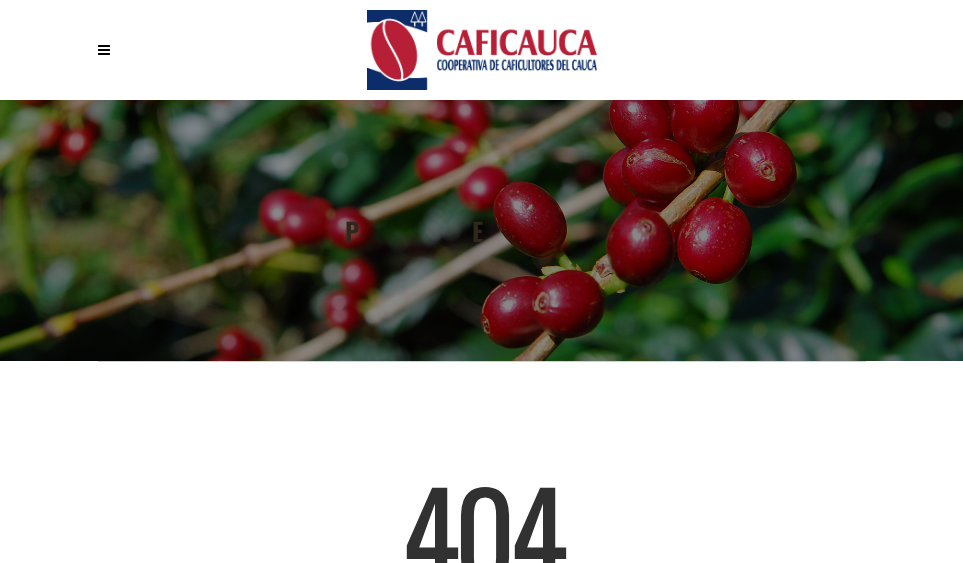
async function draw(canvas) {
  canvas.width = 963
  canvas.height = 563
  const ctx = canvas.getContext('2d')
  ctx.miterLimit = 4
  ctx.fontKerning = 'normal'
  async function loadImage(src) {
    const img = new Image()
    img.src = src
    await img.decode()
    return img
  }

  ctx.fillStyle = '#fff'
  ctx.fillRect(0, 0, 963, 563)
  ctx.drawImage(await loadImage('image0.png'), 98, 45, 12, 10)
  ctx.drawImage(await loadImage('image1.png'), 367, 10, 230, 80)
  ctx.drawImage(await loadImage('image2.png'), 0, 100, 963, 261)
  ctx.fillStyle = '#d1d1d1'
  ctx.fillRect(98, 361, 768, 1)
  ctx.letterSpacing = '1px'
  ctx.font = 'bold 25px Oswald'
  ctx.fillStyle = '#30271c'
  ctx.fillText('P', 345, 242)
  ctx.fillText('E', 472, 242)
  ctx.letterSpacing = '-6px'
  ctx.font = '120px Oswald'
  ctx.fillStyle = '#313131'
  ctx.fillText('404', 402, 585)
}

draw(document.querySelector('canvas'))
